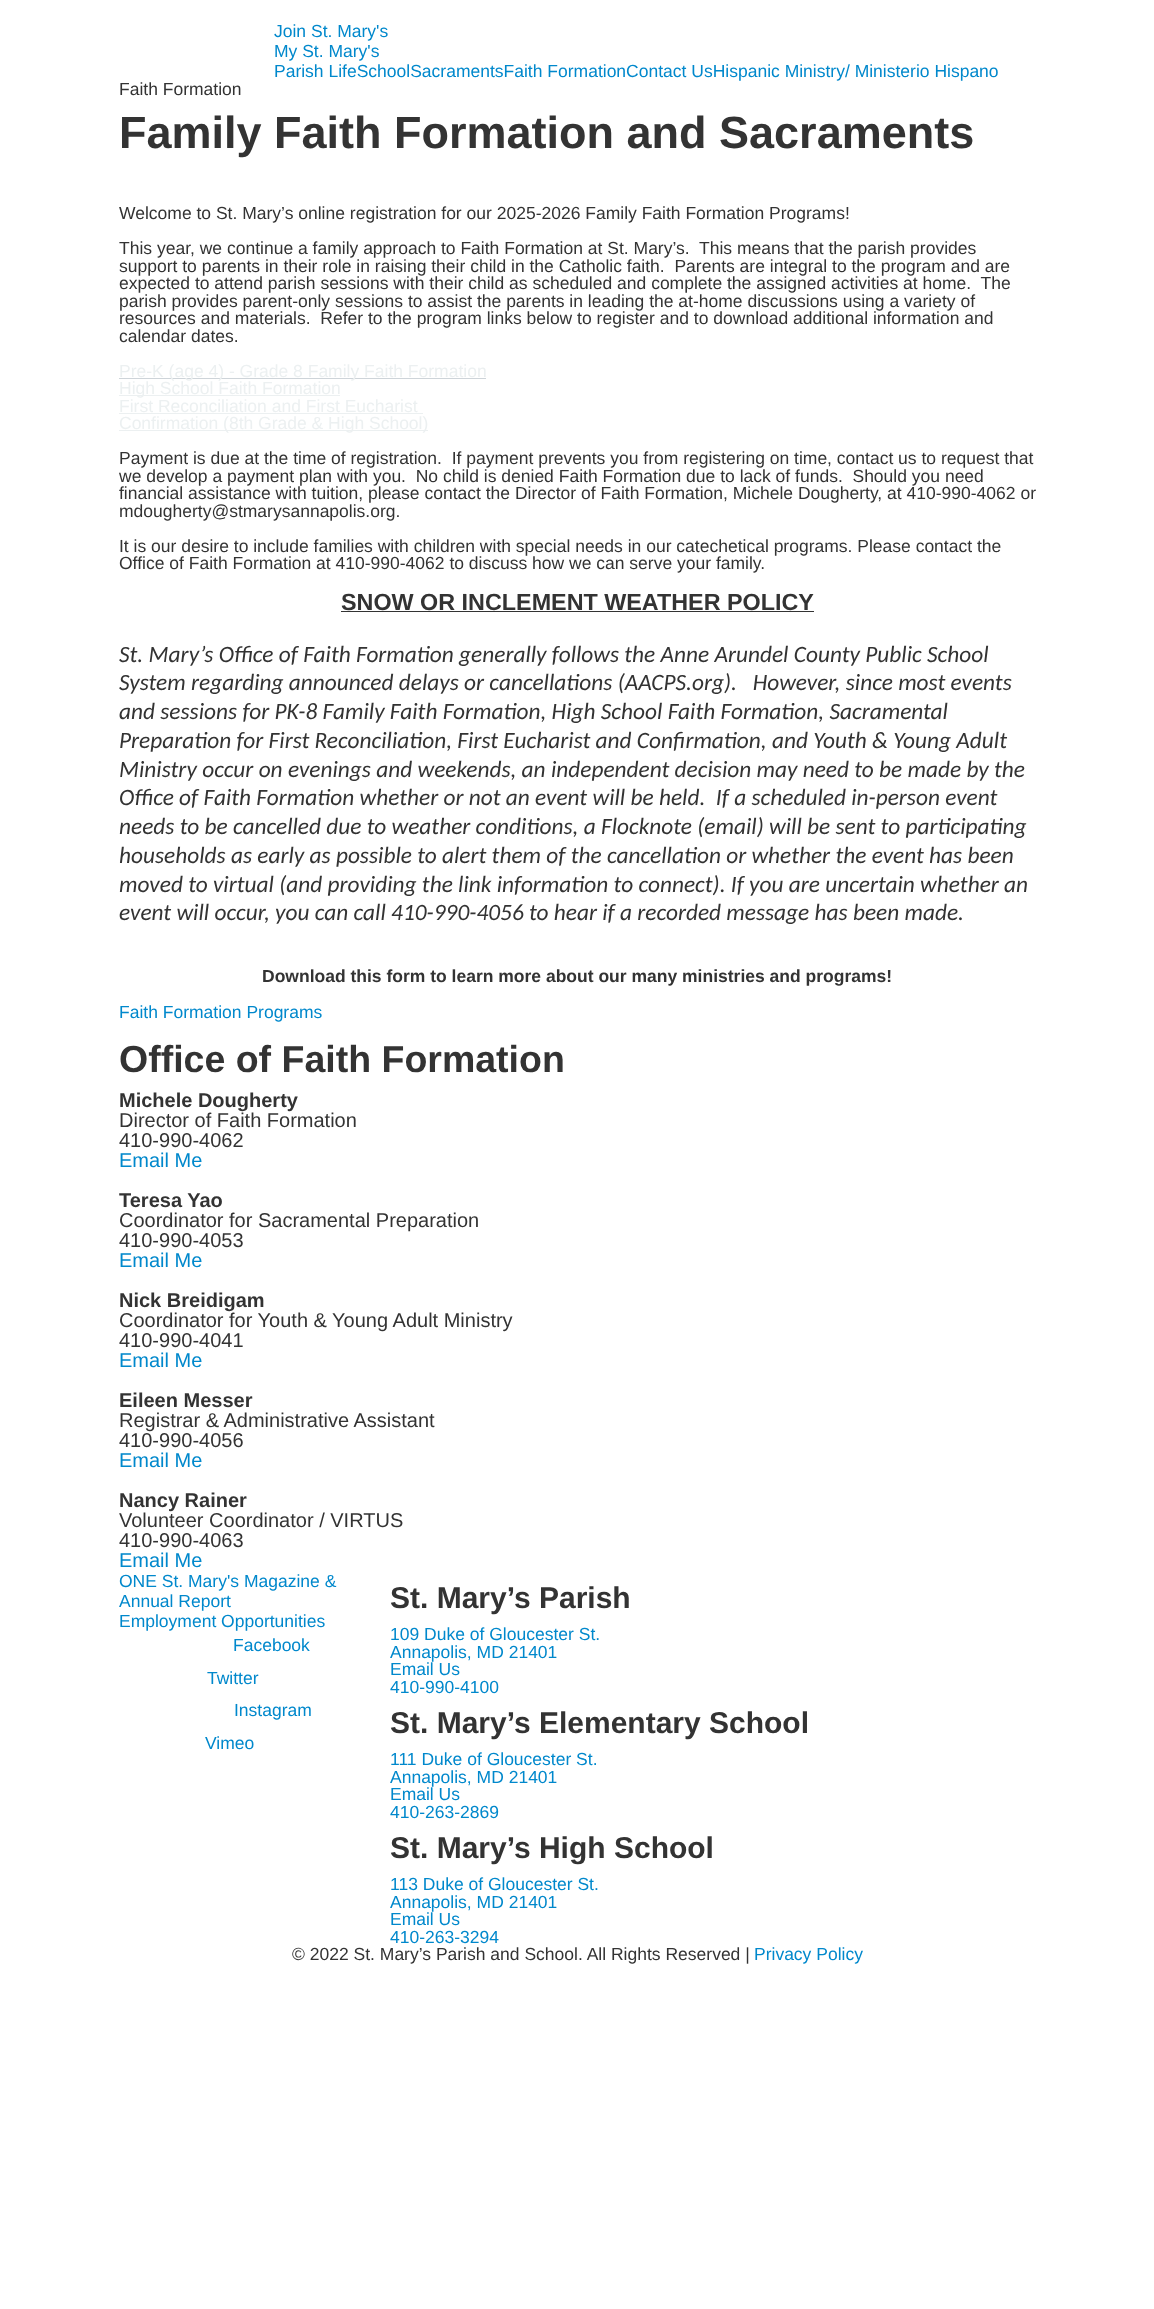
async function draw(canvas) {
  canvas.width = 1154
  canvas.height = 2309
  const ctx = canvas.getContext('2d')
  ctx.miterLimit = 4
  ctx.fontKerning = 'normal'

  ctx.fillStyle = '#fff'
  ctx.fillRect(0, 0, 1154, 2309)
  ctx.font = '17.5px Liberation Sans'
  ctx.fillStyle = '#08c'
  ctx.fillText('Join St. Mary\'s', 274, 37)
  ctx.fillText('My St. Mary\'s', 274, 57)
  ctx.fillText('Parish LifeSchoolSacramentsFaith FormationContact UsHispanic Ministry/ Ministerio Hispano', 274, 77)
  ctx.fillStyle = '#333'
  ctx.fillText('Faith Formation', 119, 95)
  ctx.font = 'bold 45px Liberation Sans'
  ctx.fillText('Family Faith Formation and Sacraments', 119, 148)
  ctx.font = '17.5px Liberation Sans'
  ctx.fillText('Welcome to St. Mary’s online registration for our 2025-2026 Family Faith Formation Programs!', 119, 219)
  ctx.fillText('This year, we continue a family approach to Faith Formation at St. Mary’s.  This means that the parish provides', 119, 254)
  ctx.fillText('support to parents in their role in raising their child in the Catholic faith.  Parents are integral to the program and are', 119, 272)
  ctx.fillText('expected to attend parish sessions with their child as scheduled and complete the assigned activities at home.  The', 119, 289)
  ctx.fillText('parish provides parent-only sessions to assist the parents in leading the at-home discussions using a variety of', 119, 307)
  ctx.fillText('resources and materials.  Refer to the program links below to register and to download additional information and', 119, 324)
  ctx.fillText('calendar dates.', 119, 342)
  ctx.fillStyle = '#ced4d9'
  ctx.fillRect(119, 378, 367, 1)
  ctx.fillStyle = '#ecf0f1'
  ctx.fillText('Pre-K (age 4) - Grade 8 Family Faith Formation', 119, 377)
  ctx.fillRect(119, 395, 221, 1)
  ctx.fillText('High School Faith Formation', 119, 394)
  ctx.fillText('First Reconciliation and First Eucharist', 119, 412)
  ctx.fillRect(119, 413, 304, 1)
  ctx.fillRect(119, 430, 309, 1)
  ctx.fillText('Confirmation (8th Grade & High School)', 119, 429)
  ctx.fillStyle = '#333'
  ctx.fillText('Payment is due at the time of registration.  If payment prevents you from registering on time, contact us to request that', 119, 464)
  ctx.fillText('we develop a payment plan with you.  No child is denied Faith Formation due to lack of funds.  Should you need', 119, 482)
  ctx.fillText('financial assistance with tuition, please contact the Director of Faith Formation, Michele Dougherty, at 410-990-4062 or', 119, 499)
  ctx.fillText('mdougherty@stmarysannapolis.org.', 119, 517)
  ctx.fillText('It is our desire to include families with children with special needs in our catechetical programs. Please contact the', 119, 552)
  ctx.fillText('Office of Faith Formation at 410-990-4062 to discuss how we can serve your family.', 119, 569)
  ctx.font = 'bold 23.35px Liberation Sans'
  ctx.fillText('SNOW OR INCLEMENT WEATHER POLICY', 341, 610)
  ctx.fillRect(341, 611, 473, 1)
  ctx.font = 'italic 23.35px Carlito'
  ctx.fillText('St. Mary’s Office of Faith Formation generally follows the Anne Arundel County Public School', 119, 662)
  ctx.fillText('System regarding announced delays or cancellations (AACPS.org).   However, since most events', 119, 690)
  ctx.fillText('and sessions for PK-8 Family Faith Formation, High School Faith Formation, Sacramental', 119, 719)
  ctx.fillText('Preparation for First Reconciliation, First Eucharist and Confirmation, and Youth & Young Adult', 119, 748)
  ctx.fillText('Ministry occur on evenings and weekends, an independent decision may need to be made by the', 119, 777)
  ctx.fillText('Office of Faith Formation whether or not an event will be held.  If a scheduled in-person event', 119, 805)
  ctx.fillText('needs to be cancelled due to weather conditions, a Flocknote (email) will be sent to participating', 119, 834)
  ctx.fillText('households as early as possible to alert them of the cancellation or whether the event has been', 119, 863)
  ctx.fillText('moved to virtual (and providing the link information to connect). If you are uncertain whether an', 119, 892)
  ctx.fillText('event will occur, you can call 410-990-4056 to hear if a recorded message has been made.', 119, 920)
  ctx.font = 'bold 17.5px Liberation Sans'
  ctx.fillText('Download this form to learn more about our many ministries and programs!', 262, 982)
  ctx.font = '17.5px Liberation Sans'
  ctx.fillStyle = '#08c'
  ctx.fillText('Faith Formation Programs', 119, 1018)
  ctx.font = 'bold 37.5px Liberation Sans'
  ctx.fillStyle = '#333'
  ctx.fillText('Office of Faith Formation', 119, 1072)
  ctx.font = 'bold 20px Liberation Sans'
  ctx.fillText('Michele Dougherty', 119, 1107)
  ctx.font = '20px Liberation Sans'
  ctx.fillText('Director of Faith Formation', 119, 1127)
  ctx.fillText('410-990-4062', 119, 1147)
  ctx.fillStyle = '#08c'
  ctx.fillText('Email Me', 119, 1167)
  ctx.font = 'bold 20px Liberation Sans'
  ctx.fillStyle = '#333'
  ctx.fillText('Teresa Yao', 119, 1207)
  ctx.font = '20px Liberation Sans'
  ctx.fillText('Coordinator for Sacramental Preparation', 119, 1227)
  ctx.fillText('410-990-4053', 119, 1247)
  ctx.fillStyle = '#08c'
  ctx.fillText('Email Me', 119, 1267)
  ctx.font = 'bold 20px Liberation Sans'
  ctx.fillStyle = '#333'
  ctx.fillText('Nick Breidigam', 119, 1307)
  ctx.font = '20px Liberation Sans'
  ctx.fillText('Coordinator for Youth & Young Adult Ministry', 119, 1327)
  ctx.fillText('410-990-4041', 119, 1347)
  ctx.fillStyle = '#08c'
  ctx.fillText('Email Me', 119, 1367)
  ctx.font = 'bold 20px Liberation Sans'
  ctx.fillStyle = '#333'
  ctx.fillText('Eileen Messer', 119, 1407)
  ctx.font = '20px Liberation Sans'
  ctx.fillText('Registrar & Administrative Assistant', 119, 1427)
  ctx.fillText('410-990-4056', 119, 1447)
  ctx.fillStyle = '#08c'
  ctx.fillText('Email Me', 119, 1467)
  ctx.font = 'bold 20px Liberation Sans'
  ctx.fillStyle = '#333'
  ctx.fillText('Nancy Rainer', 119, 1507)
  ctx.font = '20px Liberation Sans'
  ctx.fillText('Volunteer Coordinator / VIRTUS', 119, 1527)
  ctx.fillText('410-990-4063', 119, 1547)
  ctx.fillStyle = '#08c'
  ctx.fillText('Email Me', 119, 1567)
  ctx.font = '17.5px Liberation Sans'
  ctx.fillText('ONE St. Mary\'s Magazine &', 119, 1587)
  ctx.fillText('Annual Report', 119, 1607)
  ctx.fillText('Employment Opportunities', 119, 1627)
  ctx.fillText('Facebook', 233, 1651)
  ctx.fillText('Twitter', 207, 1684)
  ctx.fillText('Instagram', 234, 1716)
  ctx.fillText('Vimeo', 205, 1749)
  ctx.font = 'bold 30px Liberation Sans'
  ctx.fillStyle = '#333'
  ctx.fillText('St. Mary’s Parish', 390, 1608)
  ctx.font = '17.5px Liberation Sans'
  ctx.fillStyle = '#08c'
  ctx.fillText('109 Duke of Gloucester St.', 390, 1640)
  ctx.fillText('Annapolis, MD 21401', 390, 1658)
  ctx.fillText('Email Us', 390, 1675)
  ctx.fillText('410-990-4100', 390, 1693)
  ctx.font = 'bold 30px Liberation Sans'
  ctx.fillStyle = '#333'
  ctx.fillText('St. Mary’s Elementary School', 390, 1733)
  ctx.font = '17.5px Liberation Sans'
  ctx.fillStyle = '#08c'
  ctx.fillText('111 Duke of Gloucester St.', 390, 1765)
  ctx.fillText('Annapolis, MD 21401', 390, 1783)
  ctx.fillText('Email Us', 390, 1800)
  ctx.fillText('410-263-2869', 390, 1818)
  ctx.font = 'bold 30px Liberation Sans'
  ctx.fillStyle = '#333'
  ctx.fillText('St. Mary’s High School', 390, 1858)
  ctx.font = '17.5px Liberation Sans'
  ctx.fillStyle = '#08c'
  ctx.fillText('113 Duke of Gloucester St.', 390, 1890)
  ctx.fillText('Annapolis, MD 21401', 390, 1908)
  ctx.fillText('Email Us', 390, 1925)
  ctx.fillText('410-263-3294', 390, 1943)
  ctx.fillStyle = '#333'
  ctx.fillText('© 2022 St. Mary’s Parish and School. All Rights Reserved |', 292, 1960)
  ctx.fillStyle = '#08c'
  ctx.fillText('Privacy Policy', 754, 1960)
}

draw(document.querySelector('canvas'))
